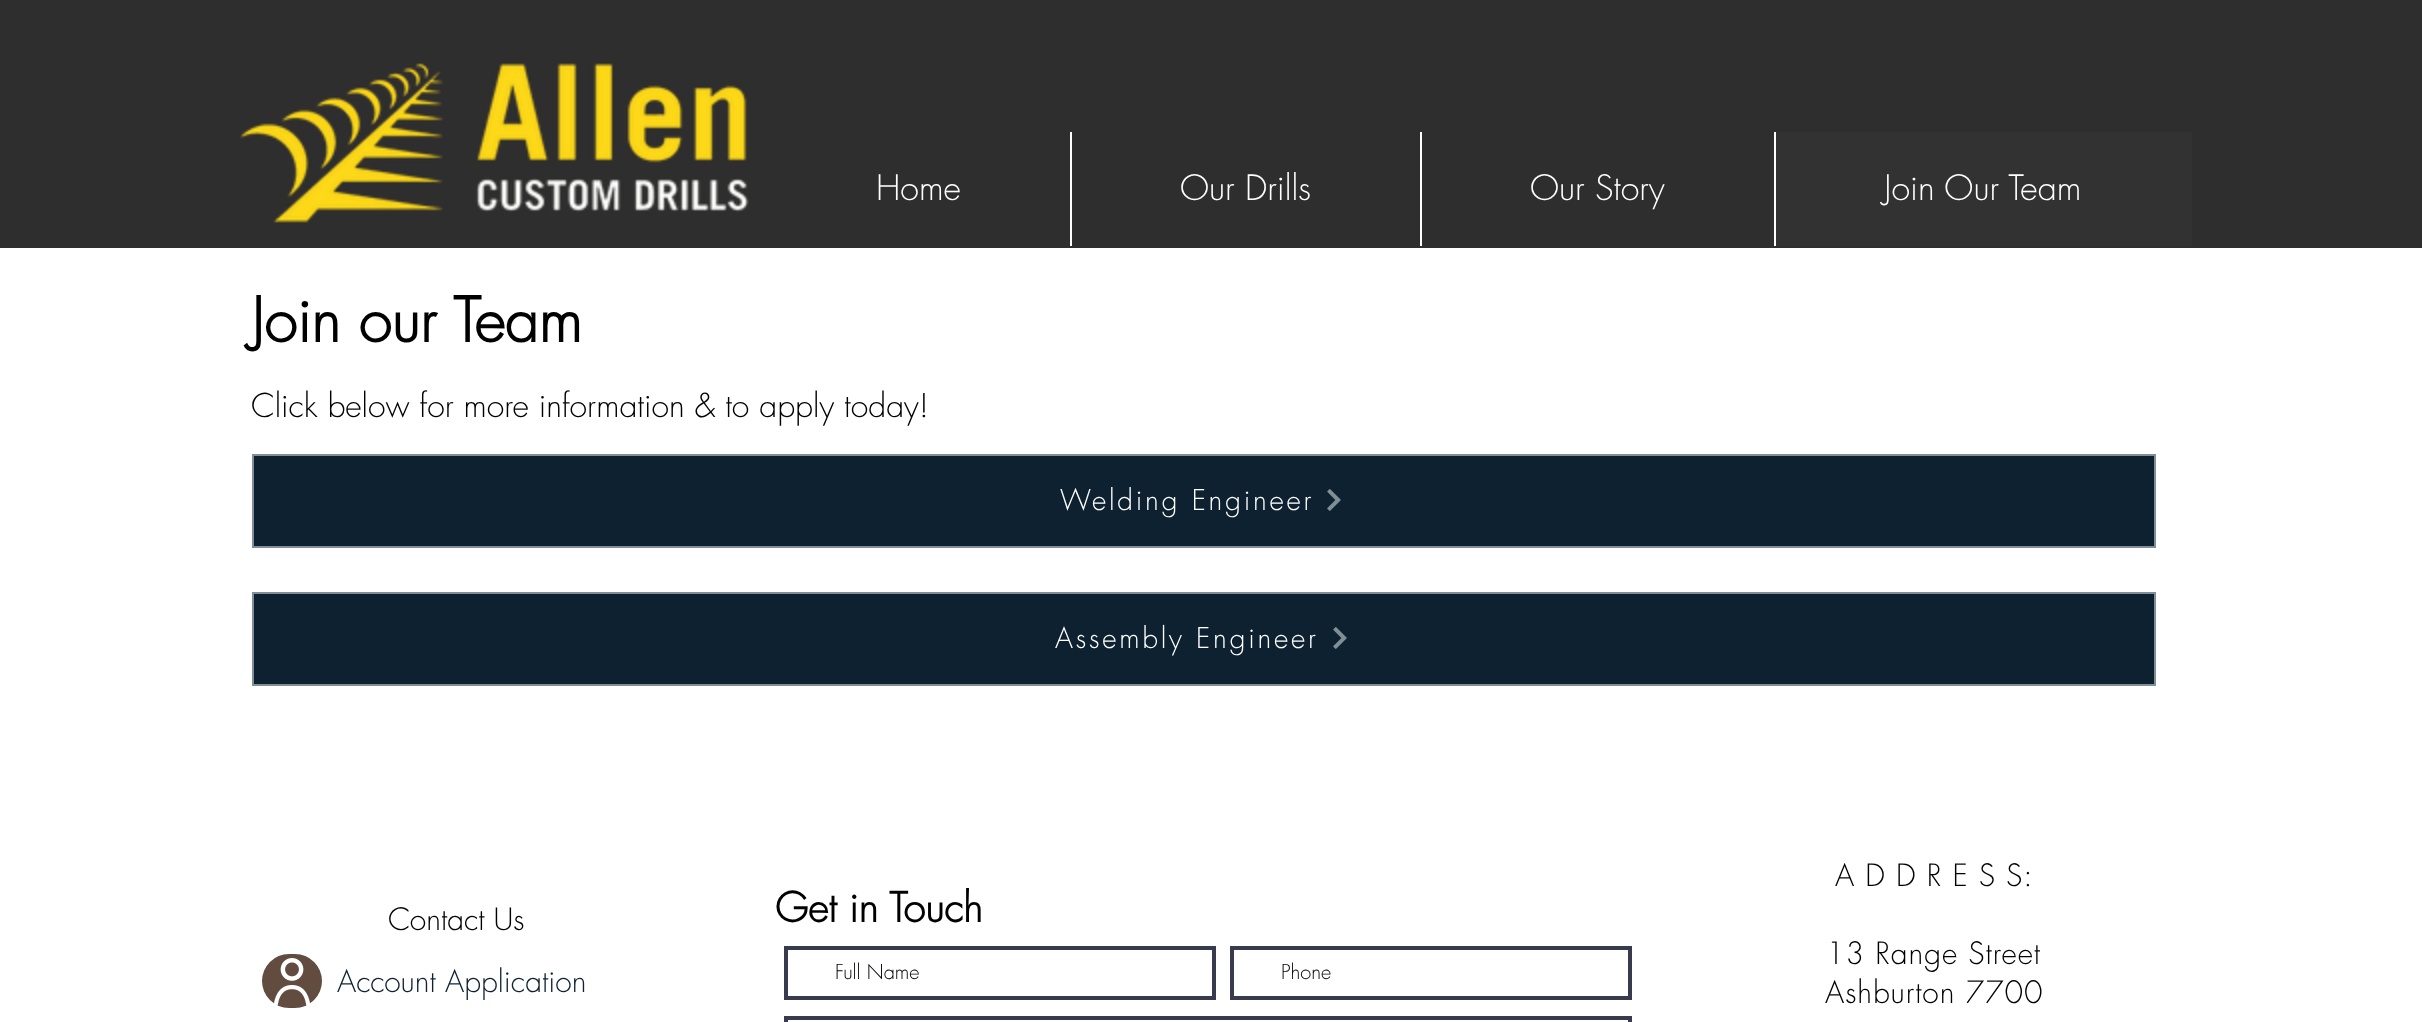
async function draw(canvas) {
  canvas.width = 2422
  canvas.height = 1022
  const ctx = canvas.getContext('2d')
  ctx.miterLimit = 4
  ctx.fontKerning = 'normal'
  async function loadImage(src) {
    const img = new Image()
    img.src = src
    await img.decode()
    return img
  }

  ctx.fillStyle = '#fff'
  ctx.fillRect(0, 0, 2422, 1022)
  ctx.fillStyle = '#2f2e2e'
  ctx.fillRect(0, 0, 2422, 248)
  ctx.drawImage(await loadImage('image0.png'), 239, 63, 510, 161)
  ctx.font = '300 34px futura'
  ctx.fillStyle = '#fff'
  ctx.fillText('Home', 876, 200)
  ctx.fillRect(1070, 132, 2, 114)
  ctx.fillText('Our Drills', 1180, 200)
  ctx.fillRect(1420, 132, 2, 114)
  ctx.fillText('Our Story', 1530, 200)
  ctx.fillStyle = '#323232'
  ctx.fillRect(1776, 132, 416, 114)
  ctx.fillStyle = '#fff'
  ctx.fillRect(1774, 132, 2, 114)
  ctx.fillText('Join Our Team', 1884, 200)
  ctx.font = 'bold 60px futura'
  ctx.fillStyle = '#000'
  ctx.fillText('Join our Team', 251, 342)
  ctx.font = '300 32px futura'
  ctx.fillText('Click below for more information & to apply today!', 251, 417)
  ctx.fillStyle = '#0d2130'
  ctx.beginPath()
  ctx.rect(253, 455, 1902, 92)
  ctx.fill()
  ctx.strokeStyle = '#808f95'
  ctx.lineWidth = 2
  ctx.stroke()
  ctx.letterSpacing = '2.75px'
  ctx.font = '300 28px futura'
  ctx.fillStyle = '#fff'
  ctx.fillText('Welding Engineer', 1060, 510)
  ctx.drawImage(await loadImage('image1.png'), 1327, 489, 14, 22)
  ctx.fillStyle = '#0d2130'
  ctx.beginPath()
  ctx.rect(253, 593, 1902, 92)
  ctx.fill()
  ctx.stroke()
  ctx.fillStyle = '#fff'
  ctx.fillText('Assembly Engineer', 1055, 648)
  ctx.drawImage(await loadImage('image1.png'), 1333, 627, 14, 22)
  ctx.letterSpacing = '0px'
  ctx.font = '300 30px futura'
  ctx.fillStyle = '#000'
  ctx.fillText('Contact Us', 388, 930)
  ctx.font = 'bold 40px futura'
  ctx.fillText('Get in Touch', 775, 922)
  ctx.strokeStyle = '#373b4d'
  ctx.lineWidth = 4
  ctx.strokeRect(786, 948, 428, 50)
  ctx.font = '300 20px futura'
  ctx.fillText('Full Name', 835, 979)
  ctx.strokeRect(1232, 948, 398, 50)
  ctx.fillText('Phone', 1281, 979)
  ctx.strokeRect(786, 1018, 844, 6)
  ctx.letterSpacing = '0.9px'
  ctx.font = '300 30px futura'
  ctx.fillText('A D D R E S S:', 1835, 886)
  ctx.fillText('13 Range Street', 1826, 964)
  ctx.fillText('Ashburton 7700', 1825, 1003)
  ctx.fillStyle = '#624c40'
  ctx.beginPath()
  ctx.roundRect(262, 954, 60, 54, 27)
  ctx.fill()
  ctx.drawImage(await loadImage('image2.png'), 274, 958, 36, 48)
  ctx.letterSpacing = '0px'
  ctx.fillStyle = '#0d2130'
  ctx.fillText('Account Application', 337, 992)
}

draw(document.querySelector('canvas'))
